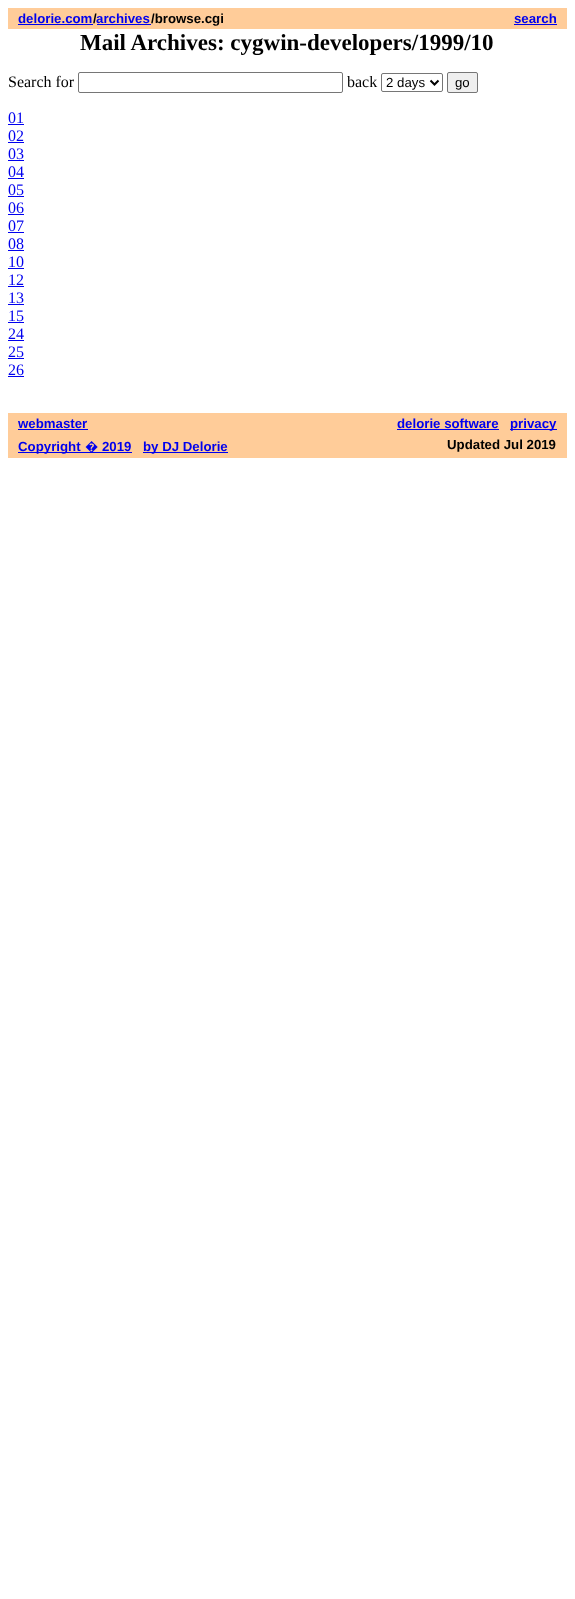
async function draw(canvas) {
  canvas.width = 575
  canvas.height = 1599
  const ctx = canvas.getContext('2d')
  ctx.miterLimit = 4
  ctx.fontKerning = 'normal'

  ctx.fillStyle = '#fff'
  ctx.fillRect(0, 0, 575, 1599)
  ctx.fillStyle = '#fc9'
  ctx.fillRect(8, 8, 559, 21)
  ctx.font = 'bold 13.25px Liberation Sans'
  ctx.fillStyle = '#00e'
  ctx.fillText('delorie.com archives', 18, 23)
  ctx.fillRect(18, 24, 75, 1)
  ctx.fillStyle = '#000'
  ctx.fillText('/', 93, 23)
  ctx.fillText('/browse.cgi', 151, 23)
  ctx.fillStyle = '#00e'
  ctx.fillRect(97, 24, 54, 1)
  ctx.fillText('search', 514, 23)
  ctx.fillRect(514, 24, 43, 1)
  ctx.font = 'bold 23px Liberation Serif'
  ctx.fillStyle = '#000'
  ctx.fillText('Mail Archives: cygwin-developers/1999/10', 80, 50)
  ctx.font = '16px Liberation Serif'
  ctx.fillText('Search for', 8, 87)
  ctx.beginPath()
  ctx.roundRect(78.5, 72.5, 264, 20, 1.5)
  ctx.strokeStyle = '#767676'
  ctx.stroke()
  ctx.fillText('back', 347, 87)
  ctx.beginPath()
  ctx.roundRect(381.5, 73.5, 61, 18, 1.5)
  ctx.stroke()
  ctx.beginPath()
  ctx.moveTo(430.5, 80.5)
  ctx.lineTo(434.5, 84.5)
  ctx.lineTo(438.5, 80.5)
  ctx.strokeStyle = '#000'
  ctx.lineWidth = 2
  ctx.stroke()
  ctx.font = '13.25px Liberation Sans'
  ctx.fillText('2 days', 386, 87)
  ctx.fillStyle = '#efefef'
  ctx.beginPath()
  ctx.roundRect(447.5, 72.5, 30, 20, 1.5)
  ctx.fill()
  ctx.strokeStyle = '#767676'
  ctx.lineWidth = 1
  ctx.stroke()
  ctx.fillStyle = '#000'
  ctx.fillText('go', 455, 87)
  ctx.font = '16px Liberation Serif'
  ctx.fillStyle = '#00e'
  ctx.fillText('01', 8, 123)
  ctx.fillRect(8, 124, 16, 1)
  ctx.fillText('02', 8, 141)
  ctx.fillRect(8, 142, 16, 1)
  ctx.fillText('03', 8, 159)
  ctx.fillRect(8, 160, 16, 1)
  ctx.fillText('04', 8, 177)
  ctx.fillRect(8, 178, 16, 1)
  ctx.fillText('05', 8, 195)
  ctx.fillRect(8, 196, 16, 1)
  ctx.fillText('06', 8, 213)
  ctx.fillRect(8, 214, 16, 1)
  ctx.fillText('07', 8, 231)
  ctx.fillRect(8, 232, 16, 1)
  ctx.fillText('08', 8, 249)
  ctx.fillRect(8, 250, 16, 1)
  ctx.fillText('10', 8, 267)
  ctx.fillRect(8, 268, 16, 1)
  ctx.fillText('12', 8, 285)
  ctx.fillRect(8, 286, 16, 1)
  ctx.fillText('13', 8, 303)
  ctx.fillRect(8, 304, 16, 1)
  ctx.fillText('15', 8, 321)
  ctx.fillRect(8, 322, 16, 1)
  ctx.fillText('24', 8, 339)
  ctx.fillRect(8, 340, 16, 1)
  ctx.fillText('25', 8, 357)
  ctx.fillRect(8, 358, 16, 1)
  ctx.fillText('26', 8, 375)
  ctx.fillRect(8, 376, 16, 1)
  ctx.fillStyle = '#fc9'
  ctx.fillRect(8, 413, 559, 21)
  ctx.font = 'bold 13.25px Liberation Sans'
  ctx.fillStyle = '#00e'
  ctx.fillText('webmaster', 18, 428)
  ctx.fillRect(18, 429, 70, 1)
  ctx.fillText('delorie software', 397, 428)
  ctx.fillRect(397, 429, 102, 1)
  ctx.fillRect(510, 429, 47, 1)
  ctx.fillText('privacy', 510, 428)
  ctx.fillStyle = '#fc9'
  ctx.fillRect(8, 434, 559, 24)
  ctx.fillStyle = '#00e'
  ctx.fillRect(18, 452, 114, 1)
  ctx.fillText('Copyright', 18, 451)
  ctx.font = 'bold 13.25px Noto Sans'
  ctx.fillText('�', 85, 451)
  ctx.font = 'bold 13.25px Liberation Sans'
  ctx.fillText('2019', 102, 451)
  ctx.fillRect(143, 452, 85, 1)
  ctx.fillText('by DJ Delorie', 143, 451)
  ctx.fillStyle = '#000'
  ctx.fillText('Updated Jul 2019', 447, 449)
}

draw(document.querySelector('canvas'))
